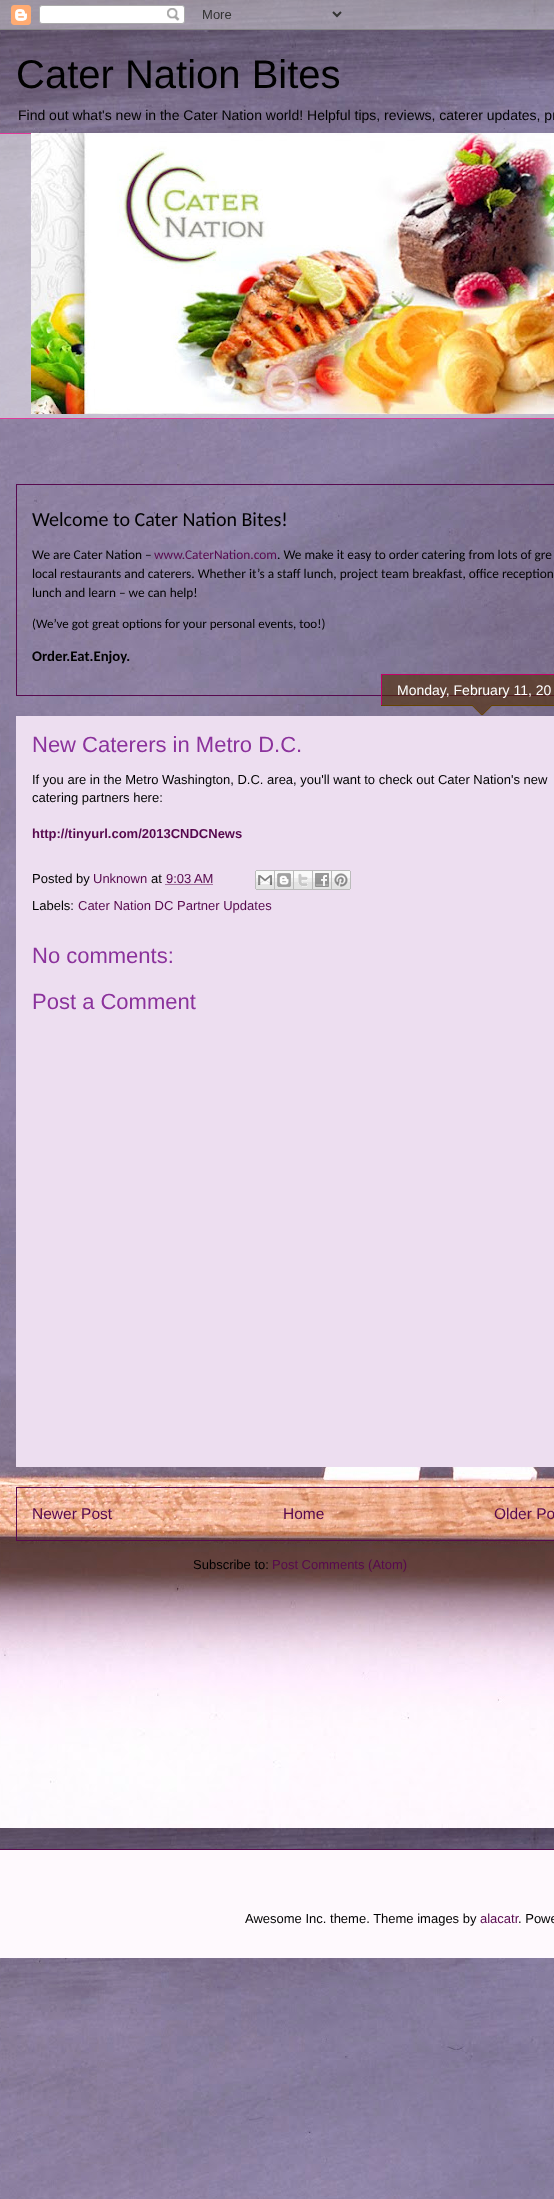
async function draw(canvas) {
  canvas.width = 554
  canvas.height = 2199
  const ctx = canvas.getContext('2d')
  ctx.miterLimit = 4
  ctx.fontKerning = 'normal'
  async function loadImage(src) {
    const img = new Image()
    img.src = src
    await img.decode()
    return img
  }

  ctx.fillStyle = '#fff'
  ctx.fillRect(0, 0, 554, 2199)
  ctx.drawImage(await loadImage('image0.png'), 0, 0, 554, 2199)
  ctx.drawImage(await loadImage('image1.png'), 0, 0, 554, 30)
  ctx.font = '40px Liberation Sans'
  ctx.fillStyle = '#000'
  ctx.fillText('Cater Nation Bites', 16, 88)
  ctx.font = '14px Liberation Sans'
  ctx.fillText('Find out what\'s new in the Cater Nation world! Helpful tips, reviews, caterer updates, pr', 18, 120)
  ctx.fillStyle = '#ffffff7d'
  ctx.fillRect(0, 134, 554, 284)
  ctx.fillStyle = '#e03a9a'
  ctx.fillRect(0, 133, 31, 1)
  ctx.drawImage(await loadImage('image2.png'), 31, 133, 523, 281)
  ctx.fillRect(0, 418, 554, 1)
  ctx.strokeStyle = '#57094e'
  ctx.strokeRect(16.5, 484.5, 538, 211)
  ctx.font = '20px Carlito'
  ctx.fillStyle = '#000'
  ctx.fillText('Welcome to Cater Nation Bites!', 32, 526)
  ctx.font = '13.35px Carlito'
  ctx.fillText('We are Cater Nation –', 32, 559)
  ctx.fillStyle = '#57094e'
  ctx.fillText('www.CaterNation.com', 154, 559)
  ctx.fillStyle = '#000'
  ctx.fillText('. We make it easy to order catering from lots of gre', 277, 559)
  ctx.fillText('local restaurants and caterers. Whether it’s a staff lunch, project team breakfast, office reception', 32, 578)
  ctx.fillText('lunch and learn – we can help!', 32, 597)
  ctx.font = '13px Carlito'
  ctx.fillText('(We’ve got great options for your personal events, too!)', 32, 628)
  ctx.font = 'bold 14.75px Carlito'
  ctx.fillText('Order.Eat.Enjoy.', 32, 661)
  ctx.fillStyle = '#eddef0'
  ctx.fillRect(16, 716, 538, 751)
  ctx.drawImage(await loadImage('image3.png'), 381, 675, 173, 40)
  ctx.fillStyle = '#c30067'
  ctx.fillRect(381, 674, 173, 1)
  ctx.fillRect(381, 675, 1, 30)
  ctx.font = '14px Liberation Sans'
  ctx.fillStyle = '#fff'
  ctx.fillText('Monday, February 11, 20', 397, 695)
  ctx.font = '22px Liberation Sans'
  ctx.fillStyle = '#8b329c'
  ctx.fillText('New Caterers in Metro D.C.', 32, 752)
  ctx.font = '13px Liberation Sans'
  ctx.fillStyle = '#000'
  ctx.fillText('If you are in the Metro Washington, D.C. area, you\'ll want to check out Cater Nation\'s new', 32, 784)
  ctx.fillText('catering partners here:', 32, 802)
  ctx.font = 'bold 13px Liberation Sans'
  ctx.fillStyle = '#57094e'
  ctx.fillText('http://tinyurl.com/2013CNDCNews', 32, 838)
  ctx.font = '13px Liberation Sans'
  ctx.fillStyle = '#000'
  ctx.fillText('Posted by', 32, 883)
  ctx.fillStyle = '#57094e'
  ctx.fillText('Unknown', 93, 883)
  ctx.fillStyle = '#000'
  ctx.fillText('at', 151, 883)
  ctx.fillStyle = '#57094e'
  ctx.fillText('9:03 AM', 166, 883)
  ctx.beginPath()
  ctx.moveTo(165.5, 884.5)
  ctx.lineTo(213, 884.5)
  ctx.setLineDash([1, 1])
  ctx.stroke()
  ctx.drawImage(await loadImage('image4.png'), 255, 870, 20, 20)
  ctx.drawImage(await loadImage('image5.png'), 275, 870, 19, 20)
  ctx.drawImage(await loadImage('image6.png'), 294, 870, 19, 20)
  ctx.drawImage(await loadImage('image7.png'), 313, 870, 19, 20)
  ctx.drawImage(await loadImage('image8.png'), 332, 870, 19, 20)
  ctx.fillStyle = '#000'
  ctx.fillText('Labels:', 32, 910)
  ctx.fillStyle = '#57094e'
  ctx.fillText('Cater Nation DC Partner Updates', 78, 910)
  ctx.font = '22px Liberation Sans'
  ctx.fillStyle = '#8b329c'
  ctx.fillText('No comments:', 32, 963)
  ctx.fillText('Post a Comment', 32, 1009)
  ctx.setLineDash([])
  ctx.strokeRect(16.5, 1487.5, 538, 53)
  ctx.font = '15.5px Liberation Sans'
  ctx.fillStyle = '#57094e'
  ctx.fillText('Newer Post', 32, 1519)
  ctx.fillText('Home', 283, 1519)
  ctx.fillText('Older Po', 494, 1519)
  ctx.font = '13px Liberation Sans'
  ctx.fillStyle = '#000'
  ctx.fillText('Subscribe to:', 193, 1569)
  ctx.fillStyle = '#57094e'
  ctx.fillText('Post Comments (Atom)', 272, 1569)
  ctx.fillStyle = '#fef9fd'
  ctx.fillRect(0, 1850, 554, 108)
  ctx.fillStyle = '#57094e'
  ctx.fillRect(0, 1849, 554, 1)
  ctx.fillStyle = '#000'
  ctx.fillText('Awesome Inc. theme. Theme images by', 245, 1923)
  ctx.fillStyle = '#57094e'
  ctx.fillText('alacatr', 480, 1923)
  ctx.fillStyle = '#000'
  ctx.fillText('. Powe', 518, 1923)
}

draw(document.querySelector('canvas'))
